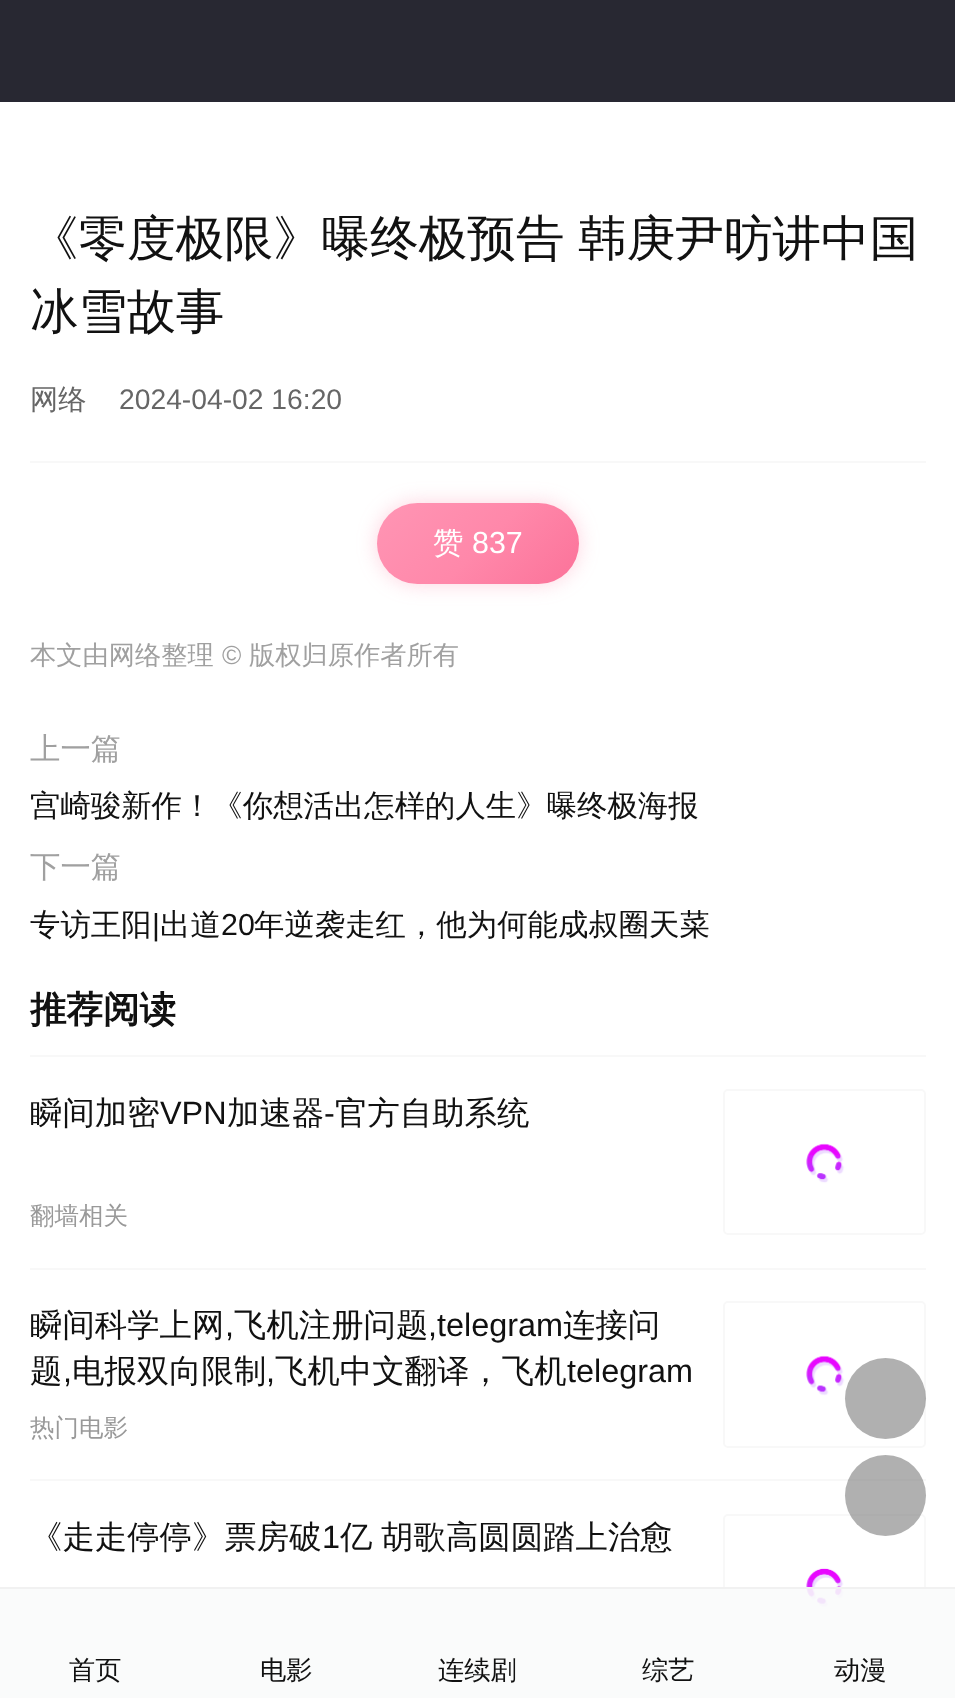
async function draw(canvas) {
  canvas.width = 955
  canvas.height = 1698
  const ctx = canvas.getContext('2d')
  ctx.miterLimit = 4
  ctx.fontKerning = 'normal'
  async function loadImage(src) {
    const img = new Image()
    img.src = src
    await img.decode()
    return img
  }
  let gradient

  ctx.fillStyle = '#fff'
  ctx.fillRect(0, 0, 955, 1698)
  ctx.fillStyle = '#282832'
  ctx.fillRect(0, 0, 955, 102)
  ctx.fillStyle = '#f8f8f8'
  ctx.fillRect(30, 461, 896, 2)
  ctx.wordSpacing = '-1px'
  ctx.font = '500 48.6px WenQuanYi Zen Hei'
  ctx.fillStyle = '#111'
  ctx.fillText('《零度极限》曝终极预告 韩庚尹昉讲中国', 30, 255)
  ctx.wordSpacing = '0px'
  ctx.fillText('冰雪故事', 30, 328)
  ctx.font = '500 28.25px WenQuanYi Zen Hei'
  ctx.fillStyle = '#666'
  ctx.fillText('网络', 30, 409)
  ctx.font = '28.25px Liberation Sans'
  ctx.fillText('2024-04-02 16:20', 119, 409)
  ctx.fillStyle = '#fb72994d'
  ctx.filter = 'blur(10px)'
  ctx.beginPath()
  ctx.roundRect(377, 503, 202, 81, 40.5)
  ctx.fill()
  ctx.filter = 'none'
  gradient = ctx.createLinearGradient(407, 472, 549, 614)
  gradient.addColorStop(0, '#ff95b4')
  gradient.addColorStop(0.52, '#f8a')
  gradient.addColorStop(1, '#fb7299')
  ctx.fillStyle = gradient
  ctx.beginPath()
  ctx.roundRect(377, 503, 202, 81, 40.5)
  ctx.fill()
  ctx.font = '500 30.4px WenQuanYi Zen Hei'
  ctx.fillStyle = '#fff'
  ctx.fillText('赞', 433, 553)
  ctx.font = '30.4px Liberation Sans'
  ctx.fillText('837', 472, 553)
  ctx.font = '500 26.25px WenQuanYi Zen Hei'
  ctx.fillStyle = '#a0a0a0'
  ctx.fillText('本文由网络整理', 30, 664)
  ctx.font = '26.25px Liberation Sans'
  ctx.fillText('©', 222, 664)
  ctx.font = '500 26.25px WenQuanYi Zen Hei'
  ctx.fillText('版权归原作者所有', 249, 664)
  ctx.font = '500 30.4px WenQuanYi Zen Hei'
  ctx.fillText('上一篇', 30, 759)
  ctx.fillStyle = '#111'
  ctx.fillText('宫崎骏新作！《你想活出怎样的人生》曝终极海报', 30, 816)
  ctx.fillStyle = '#a0a0a0'
  ctx.fillText('下一篇', 30, 877)
  ctx.fillStyle = '#111'
  ctx.fillText('专访王阳', 30, 935)
  ctx.font = '30.4px Liberation Sans'
  ctx.fillText('|', 152, 935)
  ctx.font = '500 30.4px WenQuanYi Zen Hei'
  ctx.fillText('出道', 160, 935)
  ctx.font = '30.4px Liberation Sans'
  ctx.fillText('20', 221, 935)
  ctx.font = '500 30.4px WenQuanYi Zen Hei'
  ctx.fillText('年逆袭走红，他为何能成叔圈天菜', 254, 935)
  ctx.font = 'bold 36.5px WenQuanYi Zen Hei'
  ctx.fillText('推荐阅读', 30, 1022)
  ctx.fillStyle = '#f8f8f8'
  ctx.fillRect(30, 1055, 896, 2)
  ctx.font = '500 32.4px WenQuanYi Zen Hei'
  ctx.fillStyle = '#111'
  ctx.fillText('瞬间加密', 30, 1124)
  ctx.font = '32.4px Liberation Sans'
  ctx.fillText('VPN', 160, 1124)
  ctx.font = '500 32.4px WenQuanYi Zen Hei'
  ctx.fillText('加速器', 227, 1124)
  ctx.font = '32.4px Liberation Sans'
  ctx.fillText('-', 324, 1124)
  ctx.font = '500 32.4px WenQuanYi Zen Hei'
  ctx.fillText('官方自助系统', 335, 1124)
  ctx.font = '500 24.5px WenQuanYi Zen Hei'
  ctx.fillStyle = '#999'
  ctx.fillText('翻墙相关', 30, 1224)
  ctx.drawImage(await loadImage('image0.png'), 724, 1089, 200, 146)
  ctx.beginPath()
  ctx.roundRect(724, 1090, 201, 144, 4)
  ctx.strokeStyle = '#f8f8f8'
  ctx.lineWidth = 2
  ctx.stroke()
  ctx.fillStyle = '#f8f8f8'
  ctx.fillRect(30, 1268, 896, 2)
  ctx.font = '500 32.4px WenQuanYi Zen Hei'
  ctx.fillStyle = '#111'
  ctx.fillText('瞬间科学上网', 30, 1336)
  ctx.font = '32.4px Liberation Sans'
  ctx.fillText(',', 225, 1336)
  ctx.font = '500 32.4px WenQuanYi Zen Hei'
  ctx.fillText('飞机注册问题', 234, 1336)
  ctx.font = '32.4px Liberation Sans'
  ctx.fillText(',telegram', 428, 1336)
  ctx.font = '500 32.4px WenQuanYi Zen Hei'
  ctx.fillText('连接问', 563, 1336)
  ctx.fillText('题', 30, 1382)
  ctx.font = '32.4px Liberation Sans'
  ctx.fillText(',', 63, 1382)
  ctx.font = '500 32.4px WenQuanYi Zen Hei'
  ctx.fillText('电报双向限制', 72, 1382)
  ctx.font = '32.4px Liberation Sans'
  ctx.fillText(',', 266, 1382)
  ctx.font = '500 32.4px WenQuanYi Zen Hei'
  ctx.fillText('飞机中文翻译，飞机', 275, 1382)
  ctx.font = '32.4px Liberation Sans'
  ctx.fillText('telegram', 567, 1382)
  ctx.font = '500 24.5px WenQuanYi Zen Hei'
  ctx.fillStyle = '#999'
  ctx.fillText('热门电影', 30, 1436)
  ctx.drawImage(await loadImage('image1.png'), 724, 1301, 200, 147)
  ctx.beginPath()
  ctx.roundRect(724, 1302, 201, 145, 4)
  ctx.stroke()
  ctx.fillStyle = '#f8f8f8'
  ctx.fillRect(30, 1479, 896, 2)
  ctx.font = '500 32.4px WenQuanYi Zen Hei'
  ctx.fillStyle = '#111'
  ctx.fillText('《走走停停》票房破', 30, 1548)
  ctx.font = '32.4px Liberation Sans'
  ctx.fillText('1', 322, 1548)
  ctx.wordSpacing = '-1px'
  ctx.font = '500 32.4px WenQuanYi Zen Hei'
  ctx.fillText('亿 胡歌高圆圆踏上治愈', 340, 1548)
  ctx.drawImage(await loadImage('image2.png'), 724, 1514, 200, 145)
  ctx.beginPath()
  ctx.roundRect(724, 1515, 201, 143, 4)
  ctx.stroke()
  ctx.fillStyle = '#f8f8f8'
  ctx.fillRect(30, 1692, 896, 2)
  ctx.fillStyle = '#7b7b7b99'
  ctx.beginPath()
  ctx.arc(885.5, 1398.5, 40.5, 0, 2 * Math.PI)
  ctx.fill()
  ctx.beginPath()
  ctx.arc(885.5, 1495.5, 40.5, 0, 2 * Math.PI)
  ctx.fill()
  ctx.fillStyle = '#f9fafae3'
  ctx.fillRect(0, 1589, 955, 109)
  ctx.fillStyle = '#f1f1f1'
  ctx.fillRect(0, 1587, 955, 2)
  ctx.wordSpacing = '0px'
  ctx.font = '500 26.25px WenQuanYi Zen Hei'
  ctx.fillStyle = '#111'
  ctx.fillText('首页', 69, 1679)
  ctx.fillText('电影', 260, 1679)
  ctx.fillText('连续剧', 438, 1679)
  ctx.fillText('综艺', 642, 1679)
  ctx.fillText('动漫', 834, 1679)
}

draw(document.querySelector('canvas'))
